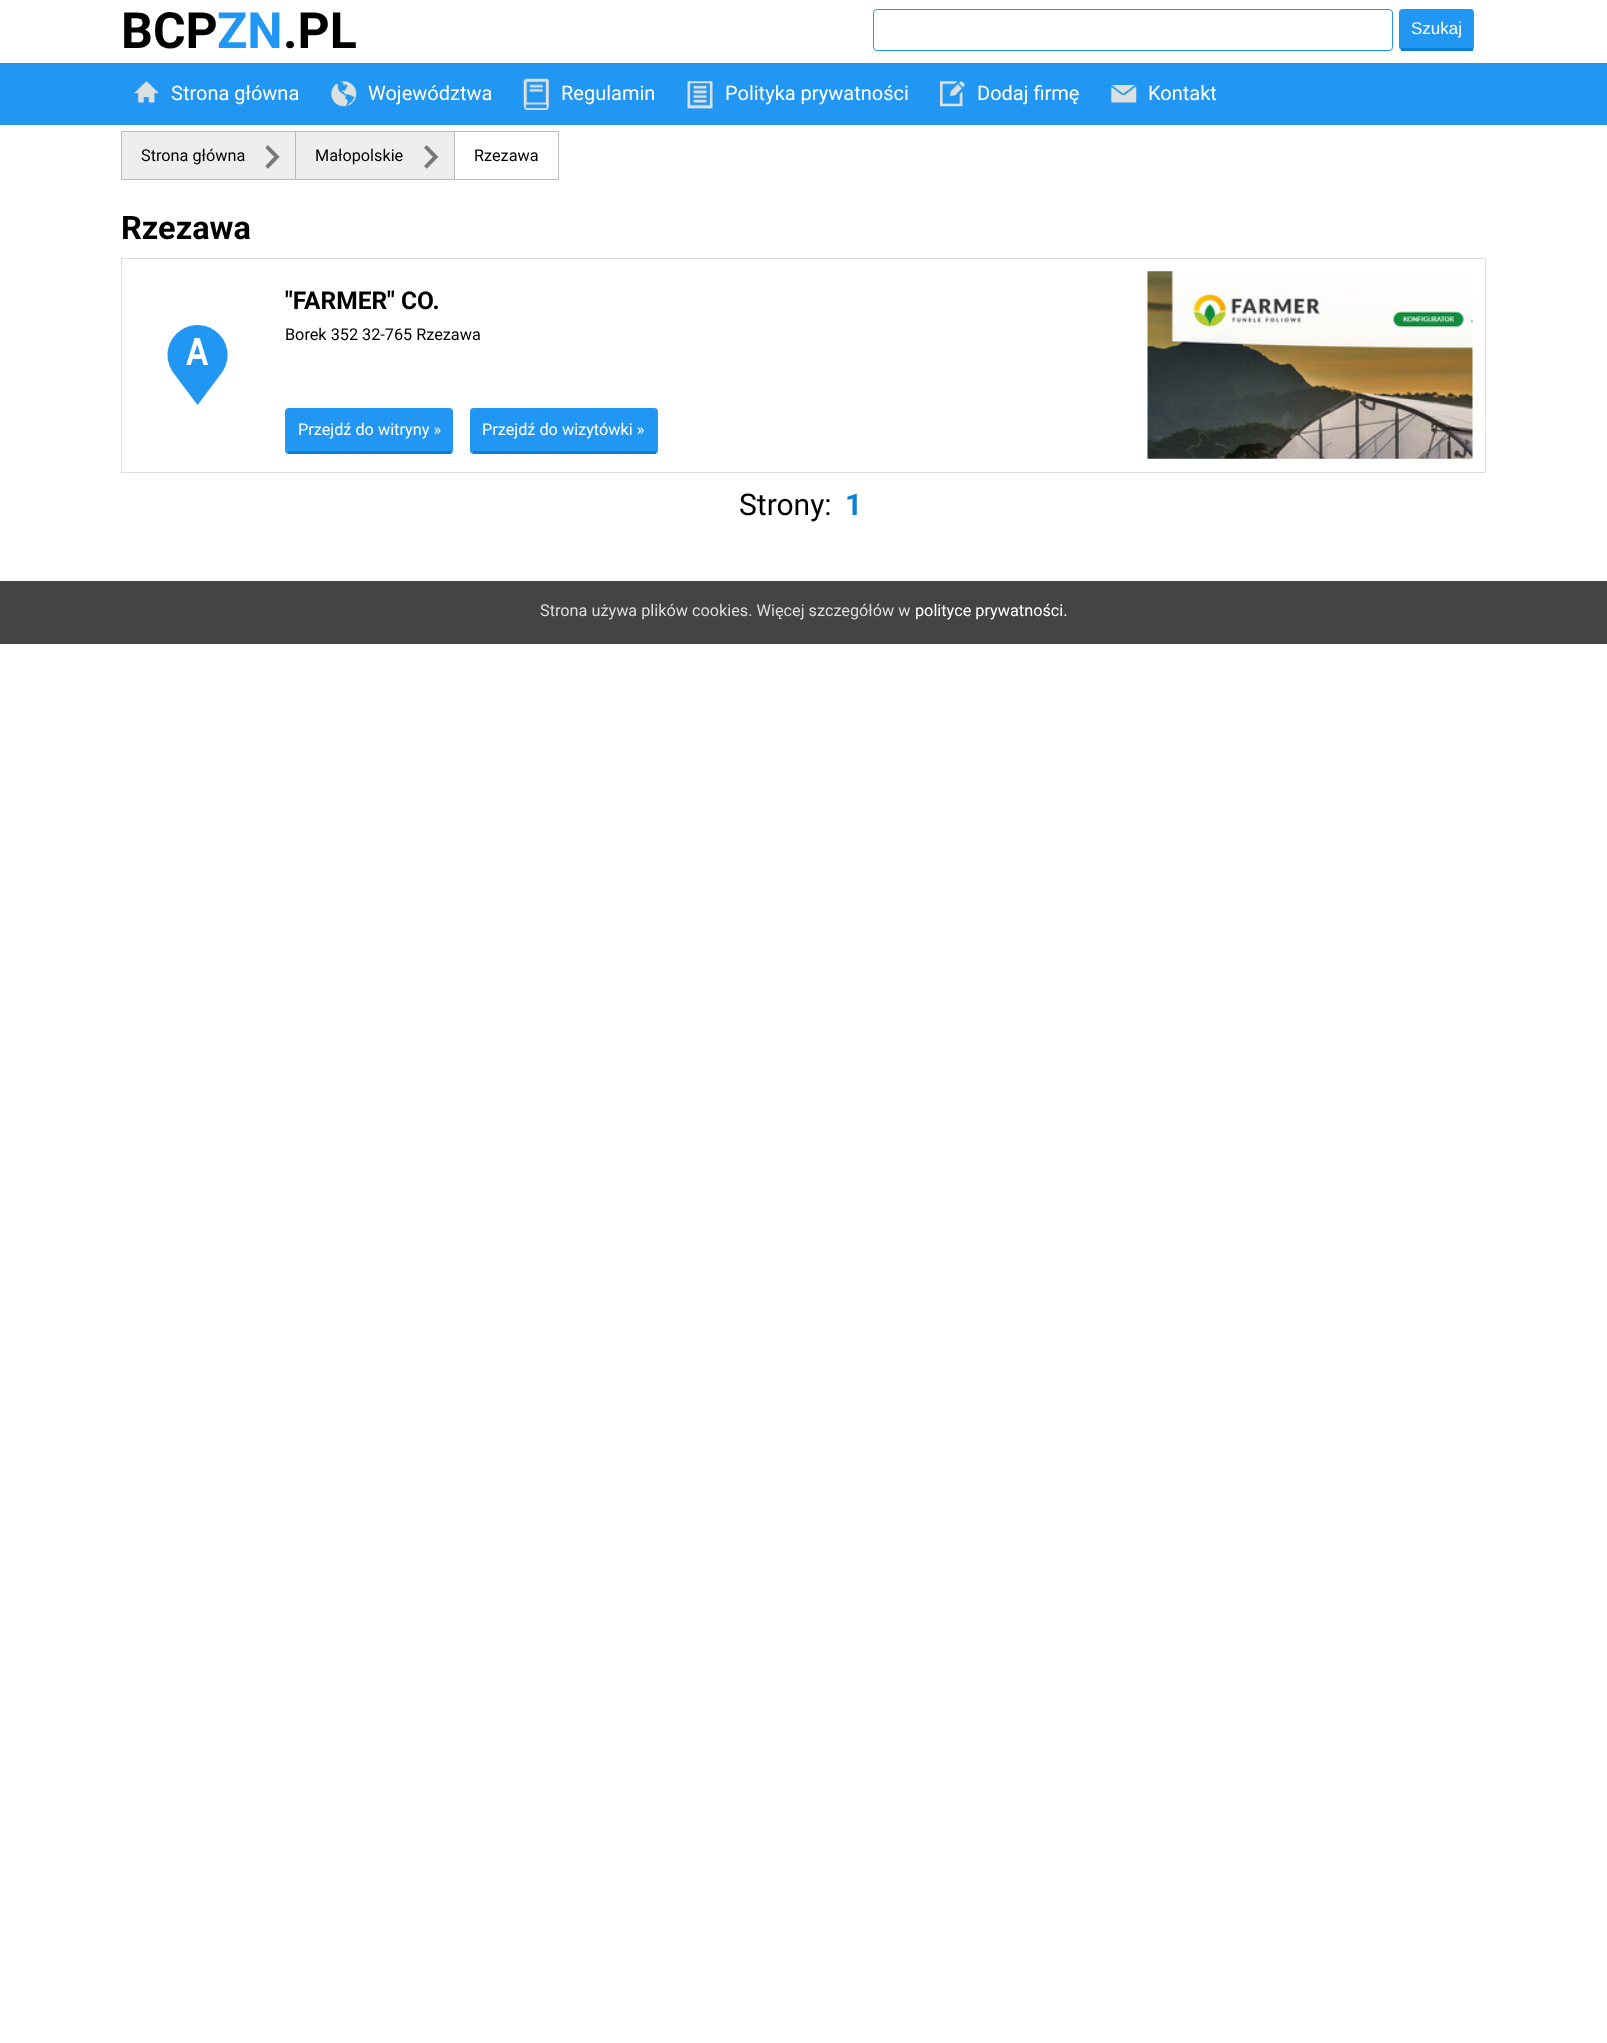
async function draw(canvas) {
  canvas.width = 1607
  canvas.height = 2043
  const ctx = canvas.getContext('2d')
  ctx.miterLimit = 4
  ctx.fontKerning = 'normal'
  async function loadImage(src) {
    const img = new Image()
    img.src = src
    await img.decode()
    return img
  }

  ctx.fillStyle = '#fff'
  ctx.fillRect(0, 0, 1607, 2043)
  ctx.font = 'bold 50px Roboto'
  ctx.fillStyle = '#000'
  ctx.fillText('BCP', 121, 48)
  ctx.fillStyle = '#2196f3'
  ctx.fillText('ZN', 217, 48)
  ctx.fillStyle = '#000'
  ctx.fillText('.PL', 283, 48)
  ctx.beginPath()
  ctx.roundRect(873.5, 9.5, 519, 41, 3.5)
  ctx.strokeStyle = '#2196f3'
  ctx.stroke()
  ctx.fillStyle = '#2196f3'
  ctx.beginPath()
  ctx.roundRect(1399, 9, 75, 41, 4)
  ctx.fill()
  ctx.fillStyle = '#0c7fda'
  ctx.fillRect(1401, 48, 72, 3)
  ctx.font = '17px Liberation Sans'
  ctx.fillStyle = '#fff'
  ctx.fillText('Szukaj', 1411, 34)
  ctx.fillStyle = '#2196f3'
  ctx.fillRect(0, 63, 1607, 62)
  ctx.drawImage(await loadImage('image0.png'), 133, 81, 26, 22)
  ctx.font = '20px Roboto'
  ctx.fillStyle = '#fff'
  ctx.fillText('Strona główna', 171, 100)
  ctx.drawImage(await loadImage('image1.png'), 331, 81, 26, 26)
  ctx.fillText('Województwa', 368, 100)
  ctx.drawImage(await loadImage('image2.png'), 523, 78, 26, 32)
  ctx.fillText('Regulamin', 561, 100)
  ctx.drawImage(await loadImage('image3.png'), 687, 81, 26, 28)
  ctx.fillText('Polityka prywatności', 725, 100)
  ctx.drawImage(await loadImage('image4.png'), 940, 81, 25, 26)
  ctx.fillText('Dodaj firmę', 977, 100)
  ctx.drawImage(await loadImage('image5.png'), 1111, 85, 26, 18)
  ctx.fillText('Kontakt', 1148, 100)
  ctx.fillStyle = '#eee'
  ctx.beginPath()
  ctx.rect(121.5, 131.5, 174, 48)
  ctx.fill()
  ctx.strokeStyle = '#bbb'
  ctx.stroke()
  ctx.font = '16.25px Roboto'
  ctx.fillStyle = '#000'
  ctx.fillText('Strona główna', 141, 161)
  ctx.drawImage(await loadImage('image6.png'), 265, 145, 15, 24)
  ctx.strokeRect(454.5, 131.5, 104, 48)
  ctx.fillStyle = '#eee'
  ctx.beginPath()
  ctx.rect(295.5, 131.5, 159, 48)
  ctx.fill()
  ctx.stroke()
  ctx.fillStyle = '#000'
  ctx.fillText('Małopolskie', 315, 161)
  ctx.drawImage(await loadImage('image7.png'), 423, 145, 16, 24)
  ctx.fillText('Rzezawa', 474, 161)
  ctx.font = 'bold 32.5px Roboto'
  ctx.fillText('Rzezawa', 121, 239)
  ctx.strokeStyle = '#ddd'
  ctx.strokeRect(121.5, 258.5, 1364, 214)
  ctx.drawImage(await loadImage('image8.png'), 167, 325, 61, 80)
  ctx.font = 'bold 24.5px Roboto'
  ctx.fillText('"FARMER" CO.', 285, 309)
  ctx.font = '16.25px Roboto'
  ctx.fillText('Borek 352 32-765 Rzezawa', 285, 340)
  ctx.fillStyle = '#2196f3'
  ctx.beginPath()
  ctx.roundRect(285, 408, 168, 46, 4)
  ctx.fill()
  ctx.fillStyle = '#fff'
  ctx.fillText('Przejdź do witryny »', 298, 435)
  ctx.fillStyle = '#0c7fda'
  ctx.fillRect(288, 451, 163, 3)
  ctx.fillStyle = '#2196f3'
  ctx.beginPath()
  ctx.roundRect(470, 408, 188, 46, 4)
  ctx.fill()
  ctx.fillStyle = '#fff'
  ctx.fillText('Przejdź do wizytówki »', 482, 435)
  ctx.fillStyle = '#0c7fda'
  ctx.fillRect(473, 451, 183, 3)
  ctx.drawImage(await loadImage('image9.png'), 1147, 271, 326, 188)
  ctx.font = '30px Roboto'
  ctx.fillStyle = '#000'
  ctx.fillText('Strony:', 739, 515)
  ctx.font = 'bold 30px Roboto'
  ctx.fillStyle = '#0c7fda'
  ctx.fillText('1', 845, 515)
  ctx.fillStyle = '#444'
  ctx.fillRect(0, 581, 1607, 63)
  ctx.font = '16.25px Roboto'
  ctx.fillStyle = '#ddd'
  ctx.fillText('Strona używa plików cookies. Więcej szczegółów w', 540, 616)
  ctx.fillStyle = '#fff'
  ctx.fillText('polityce prywatności.', 915, 616)
}

draw(document.querySelector('canvas'))
